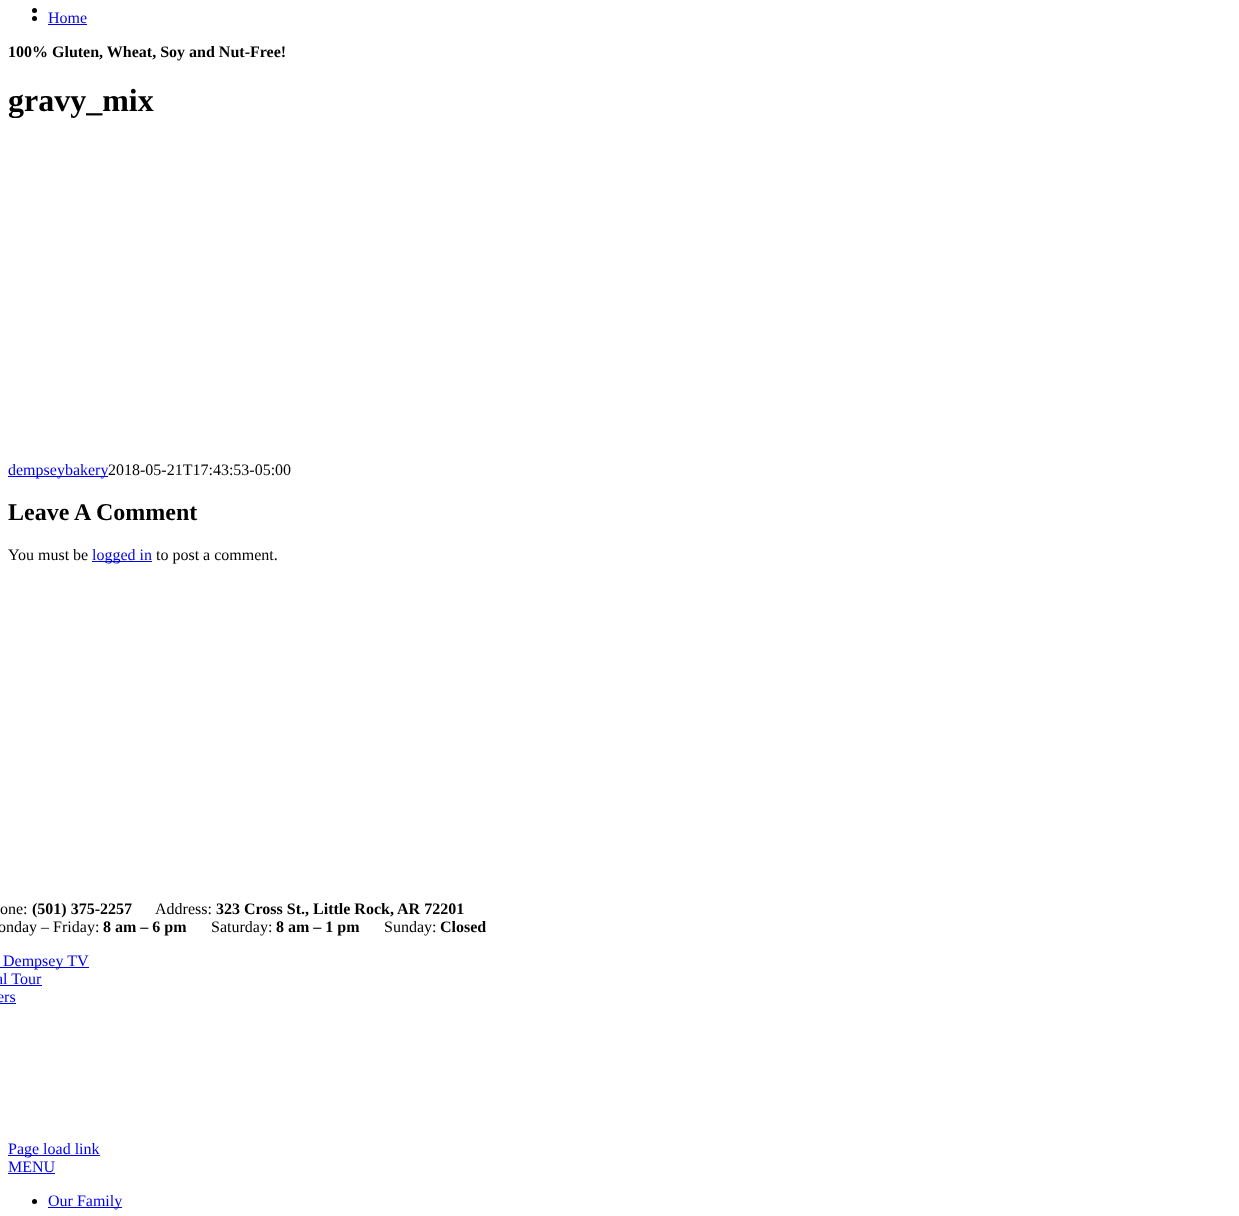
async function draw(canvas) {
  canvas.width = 1239
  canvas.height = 1216
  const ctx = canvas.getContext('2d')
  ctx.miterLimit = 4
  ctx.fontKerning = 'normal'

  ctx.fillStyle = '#fff'
  ctx.fillRect(0, 0, 1239, 1216)
  ctx.fillStyle = '#000'
  ctx.beginPath()
  ctx.arc(34.5, 10.5, 2.5, 0, 2 * Math.PI)
  ctx.fill()
  ctx.beginPath()
  ctx.arc(34.5, 18.5, 2.5, 0, 2 * Math.PI)
  ctx.fill()
  ctx.font = '16px Liberation Serif'
  ctx.fillStyle = '#00e'
  ctx.fillText('Home', 48, 23)
  ctx.fillRect(48, 24, 39, 1)
  ctx.font = 'bold 16px Liberation Serif'
  ctx.fillStyle = '#000'
  ctx.fillText('100% Gluten, Wheat, Soy and Nut-Free!', 8, 57)
  ctx.font = 'bold 32px Liberation Serif'
  ctx.fillText('gravy_mix', 8, 111)
  ctx.fillStyle = '#00e'
  ctx.fillRect(8, 476, 100, 1)
  ctx.font = '16px Liberation Serif'
  ctx.fillText('dempseybakery', 8, 475)
  ctx.fillStyle = '#000'
  ctx.fillText('2018-05-21T17:43:53-05:00', 108, 475)
  ctx.font = 'bold 24px Liberation Serif'
  ctx.fillText('Leave A Comment', 8, 520)
  ctx.font = '16px Liberation Serif'
  ctx.fillText('You must be', 8, 560)
  ctx.fillStyle = '#00e'
  ctx.fillRect(92, 561, 60, 1)
  ctx.fillText('logged in', 92, 560)
  ctx.fillStyle = '#000'
  ctx.fillText('to post a comment.', 156, 560)
  ctx.fillText('one:', 0, 914)
  ctx.font = 'bold 16px Liberation Serif'
  ctx.fillText('(501) 375-2257', 32, 914)
  ctx.font = '16px Liberation Serif'
  ctx.fillText('Address:', 155, 914)
  ctx.font = 'bold 16px Liberation Serif'
  ctx.fillText('323 Cross St., Little Rock, AR 72201', 216, 914)
  ctx.font = '16px Liberation Serif'
  ctx.fillText('onday – Friday:', -2, 932)
  ctx.font = 'bold 16px Liberation Serif'
  ctx.fillText('8 am – 6 pm', 103, 932)
  ctx.font = '16px Liberation Serif'
  ctx.fillText('Saturday:', 211, 932)
  ctx.font = 'bold 16px Liberation Serif'
  ctx.fillText('8 am – 1 pm', 276, 932)
  ctx.font = '16px Liberation Serif'
  ctx.fillText('Sunday:', 384, 932)
  ctx.font = 'bold 16px Liberation Serif'
  ctx.fillText('Closed', 440, 932)
  ctx.fillStyle = '#00e'
  ctx.fillRect(0, 967, 89, 1)
  ctx.font = '16px Liberation Serif'
  ctx.fillText('Dempsey TV', 3, 966)
  ctx.fillText('al Tour', -4, 984)
  ctx.fillRect(0, 985, 42, 1)
  ctx.fillText('ers', -3, 1002)
  ctx.fillRect(0, 1003, 16, 1)
  ctx.fillRect(8, 1155, 92, 1)
  ctx.fillText('Page load link', 8, 1154)
  ctx.fillText('MENU', 8, 1172)
  ctx.fillRect(8, 1173, 47, 1)
  ctx.fillStyle = '#000'
  ctx.beginPath()
  ctx.arc(34.5, 1201.5, 2.5, 0, 2 * Math.PI)
  ctx.fill()
  ctx.fillStyle = '#00e'
  ctx.fillRect(48, 1207, 74, 1)
  ctx.fillText('Our Family', 48, 1206)
}

draw(document.querySelector('canvas'))
